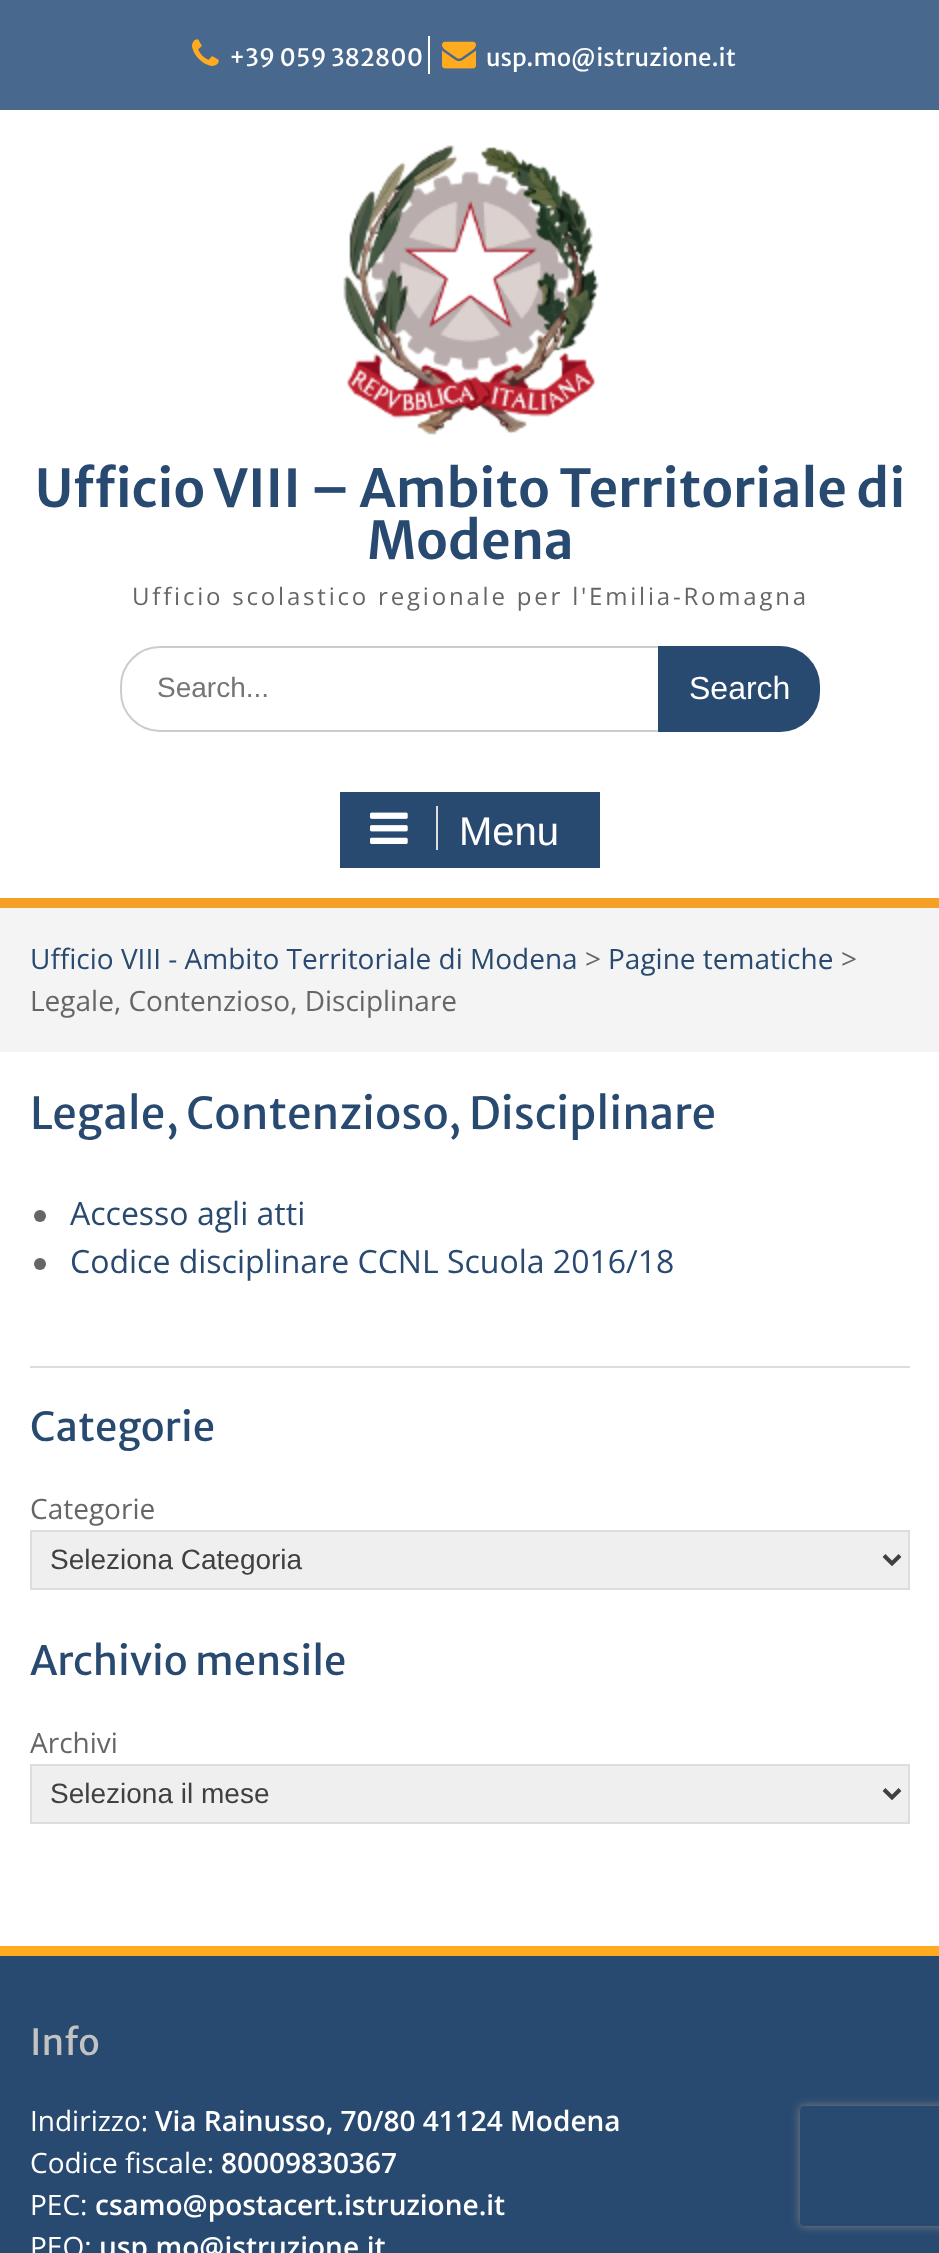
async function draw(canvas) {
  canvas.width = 939
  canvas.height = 2253
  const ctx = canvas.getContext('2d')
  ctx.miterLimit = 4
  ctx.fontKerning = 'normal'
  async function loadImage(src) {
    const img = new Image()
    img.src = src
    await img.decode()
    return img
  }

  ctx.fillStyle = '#fff'
  ctx.fillRect(0, 0, 939, 2253)
  ctx.fillStyle = '#49688e'
  ctx.fillRect(0, 0, 939, 110)
  ctx.drawImage(await loadImage('image0.png'), 192, 39, 27, 27)
  ctx.font = '24px Merriweather Sans'
  ctx.fillStyle = '#fff'
  ctx.fillText('+39 059 382800', 229, 66)
  ctx.fillRect(428, 36, 2, 38)
  ctx.drawImage(await loadImage('image1.png'), 442, 41, 34, 28)
  ctx.fillText('usp.mo@istruzione.it', 486, 66)
  ctx.drawImage(await loadImage('image2.png'), 343, 145, 256, 290)
  ctx.font = '600 52px Merriweather Sans'
  ctx.fillStyle = '#294a70'
  ctx.fillText('Ufficio VIII – Ambito Territoriale di', 35, 507)
  ctx.fillText('Modena', 367, 559)
  ctx.letterSpacing = '2.8px'
  ctx.font = '24px Open Sans'
  ctx.fillStyle = '#666'
  ctx.fillText('Ufficio scolastico regionale per l\'Emilia-Romagna', 132, 605)
  ctx.beginPath()
  ctx.roundRect(121, 647, 698, 84, 39)
  ctx.strokeStyle = '#ccc'
  ctx.lineWidth = 2
  ctx.stroke()
  ctx.letterSpacing = '0px'
  ctx.font = '28px Liberation Sans'
  ctx.fillStyle = '#757575'
  ctx.fillText('Search...', 157, 697)
  ctx.fillStyle = '#294a70'
  ctx.beginPath()
  ctx.roundRect(658, 646, 162, 86, [0, 40, 40, 0])
  ctx.fill()
  ctx.font = '32px Liberation Sans'
  ctx.fillStyle = '#fff'
  ctx.fillText('Search', 689, 699)
  ctx.fillStyle = '#f4a024'
  ctx.fillRect(0, 898, 939, 10)
  ctx.fillStyle = '#294a70'
  ctx.fillRect(340, 792, 260, 76)
  ctx.fillStyle = '#ddd'
  ctx.fillRect(436, 806, 2, 44)
  ctx.drawImage(await loadImage('image3.png'), 370, 812, 38, 32)
  ctx.font = '40px Liberation Sans'
  ctx.fillStyle = '#fff'
  ctx.fillText('Menu', 459, 845)
  ctx.fillStyle = '#f4f4f4'
  ctx.fillRect(0, 908, 939, 144)
  ctx.font = '28px Open Sans'
  ctx.fillStyle = '#294a70'
  ctx.fillText('Ufficio VIII - Ambito Territoriale di Modena', 30, 969)
  ctx.fillStyle = '#666'
  ctx.fillText('>', 585, 969)
  ctx.fillStyle = '#294a70'
  ctx.fillText('Pagine tematiche', 608, 969)
  ctx.fillStyle = '#666'
  ctx.fillText('>', 841, 969)
  ctx.fillText('Legale, Contenzioso, Disciplinare', 30, 1011)
  ctx.fillStyle = '#ddd'
  ctx.fillRect(30, 1366, 880, 2)
  ctx.font = '44px Merriweather Sans'
  ctx.fillStyle = '#294a70'
  ctx.fillText('Legale, Contenzioso, Disciplinare', 30, 1129)
  ctx.fillStyle = '#666'
  ctx.beginPath()
  ctx.arc(40, 1216, 6, 0, 2 * Math.PI)
  ctx.fill()
  ctx.font = '32px Open Sans'
  ctx.fillStyle = '#294a70'
  ctx.fillText('Accesso agli atti', 70, 1225)
  ctx.fillStyle = '#666'
  ctx.beginPath()
  ctx.arc(40, 1264, 6, 0, 2 * Math.PI)
  ctx.fill()
  ctx.fillStyle = '#294a70'
  ctx.fillText('Codice disciplinare CCNL Scuola 2016/18', 70, 1273)
  ctx.font = '40px Merriweather Sans'
  ctx.fillText('Categorie', 30, 1441)
  ctx.font = '28px Open Sans'
  ctx.fillStyle = '#666'
  ctx.fillText('Categorie', 30, 1519)
  ctx.fillStyle = '#efefef'
  ctx.beginPath()
  ctx.rect(31, 1531, 878, 58)
  ctx.fill()
  ctx.strokeStyle = '#ddd'
  ctx.stroke()
  ctx.beginPath()
  ctx.moveTo(884, 1555.5)
  ctx.lineTo(892, 1563.5)
  ctx.lineTo(900, 1555.5)
  ctx.strokeStyle = '#404040'
  ctx.lineWidth = 4
  ctx.stroke()
  ctx.font = '28px Liberation Sans'
  ctx.fillStyle = '#404040'
  ctx.fillText('Seleziona Categoria', 50, 1569)
  ctx.font = '40px Merriweather Sans'
  ctx.fillStyle = '#294a70'
  ctx.fillText('Archivio mensile', 30, 1675)
  ctx.font = '28px Open Sans'
  ctx.fillStyle = '#666'
  ctx.fillText('Archivi', 30, 1753)
  ctx.fillStyle = '#efefef'
  ctx.beginPath()
  ctx.rect(31, 1765, 878, 58)
  ctx.fill()
  ctx.strokeStyle = '#ddd'
  ctx.lineWidth = 2
  ctx.stroke()
  ctx.beginPath()
  ctx.moveTo(884, 1789.5)
  ctx.lineTo(892, 1797.5)
  ctx.lineTo(900, 1789.5)
  ctx.strokeStyle = '#404040'
  ctx.lineWidth = 4
  ctx.stroke()
  ctx.font = '28px Liberation Sans'
  ctx.fillStyle = '#404040'
  ctx.fillText('Seleziona il mese', 50, 1803)
  ctx.fillStyle = '#294a70'
  ctx.fillRect(0, 1956, 939, 297)
  ctx.fillStyle = '#ffab1f'
  ctx.fillRect(0, 1946, 939, 10)
  ctx.font = '36px Merriweather Sans'
  ctx.fillStyle = '#c2c2c2'
  ctx.fillText('Info', 30, 2055)
  ctx.font = '28px Open Sans'
  ctx.fillStyle = '#fff'
  ctx.fillText('Indirizzo:', 30, 2131)
  ctx.font = '600 28px Open Sans'
  ctx.fillText('Via Rainusso, 70/80 41124 Modena', 155, 2131)
  ctx.font = '28px Open Sans'
  ctx.fillText('Codice fiscale:', 30, 2173)
  ctx.font = '600 28px Open Sans'
  ctx.fillText('80009830367', 221, 2173)
  ctx.font = '28px Open Sans'
  ctx.fillText('PEC:', 30, 2215)
  ctx.font = '600 28px Open Sans'
  ctx.fillText('csamo@postacert.istruzione.it', 95, 2215)
  ctx.font = '28px Open Sans'
  ctx.fillText('PEO:', 30, 2257)
  ctx.font = '600 28px Open Sans'
  ctx.fillText('usp.mo@istruzione.it', 99, 2257)
  ctx.save()
  ctx.beginPath()
  ctx.moveTo(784, 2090)
  ctx.lineTo(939, 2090)
  ctx.lineTo(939, 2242)
  ctx.lineTo(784, 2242)
  ctx.closePath()
  ctx.moveTo(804, 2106)
  ctx.lineTo(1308, 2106)
  ctx.bezierCurveTo(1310, 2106, 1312, 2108, 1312, 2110)
  ctx.lineTo(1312, 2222)
  ctx.bezierCurveTo(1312, 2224, 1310, 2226, 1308, 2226)
  ctx.lineTo(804, 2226)
  ctx.bezierCurveTo(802, 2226, 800, 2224, 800, 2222)
  ctx.lineTo(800, 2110)
  ctx.bezierCurveTo(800, 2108, 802, 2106, 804, 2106)
  ctx.closePath()
  ctx.clip('evenodd')
  ctx.fillStyle = '#808080'
  ctx.filter = 'blur(5px)'
  ctx.beginPath()
  ctx.roundRect(800, 2106, 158, 120, 4)
  ctx.fill()
  ctx.filter = 'none'
  ctx.restore()
}

draw(document.querySelector('canvas'))
